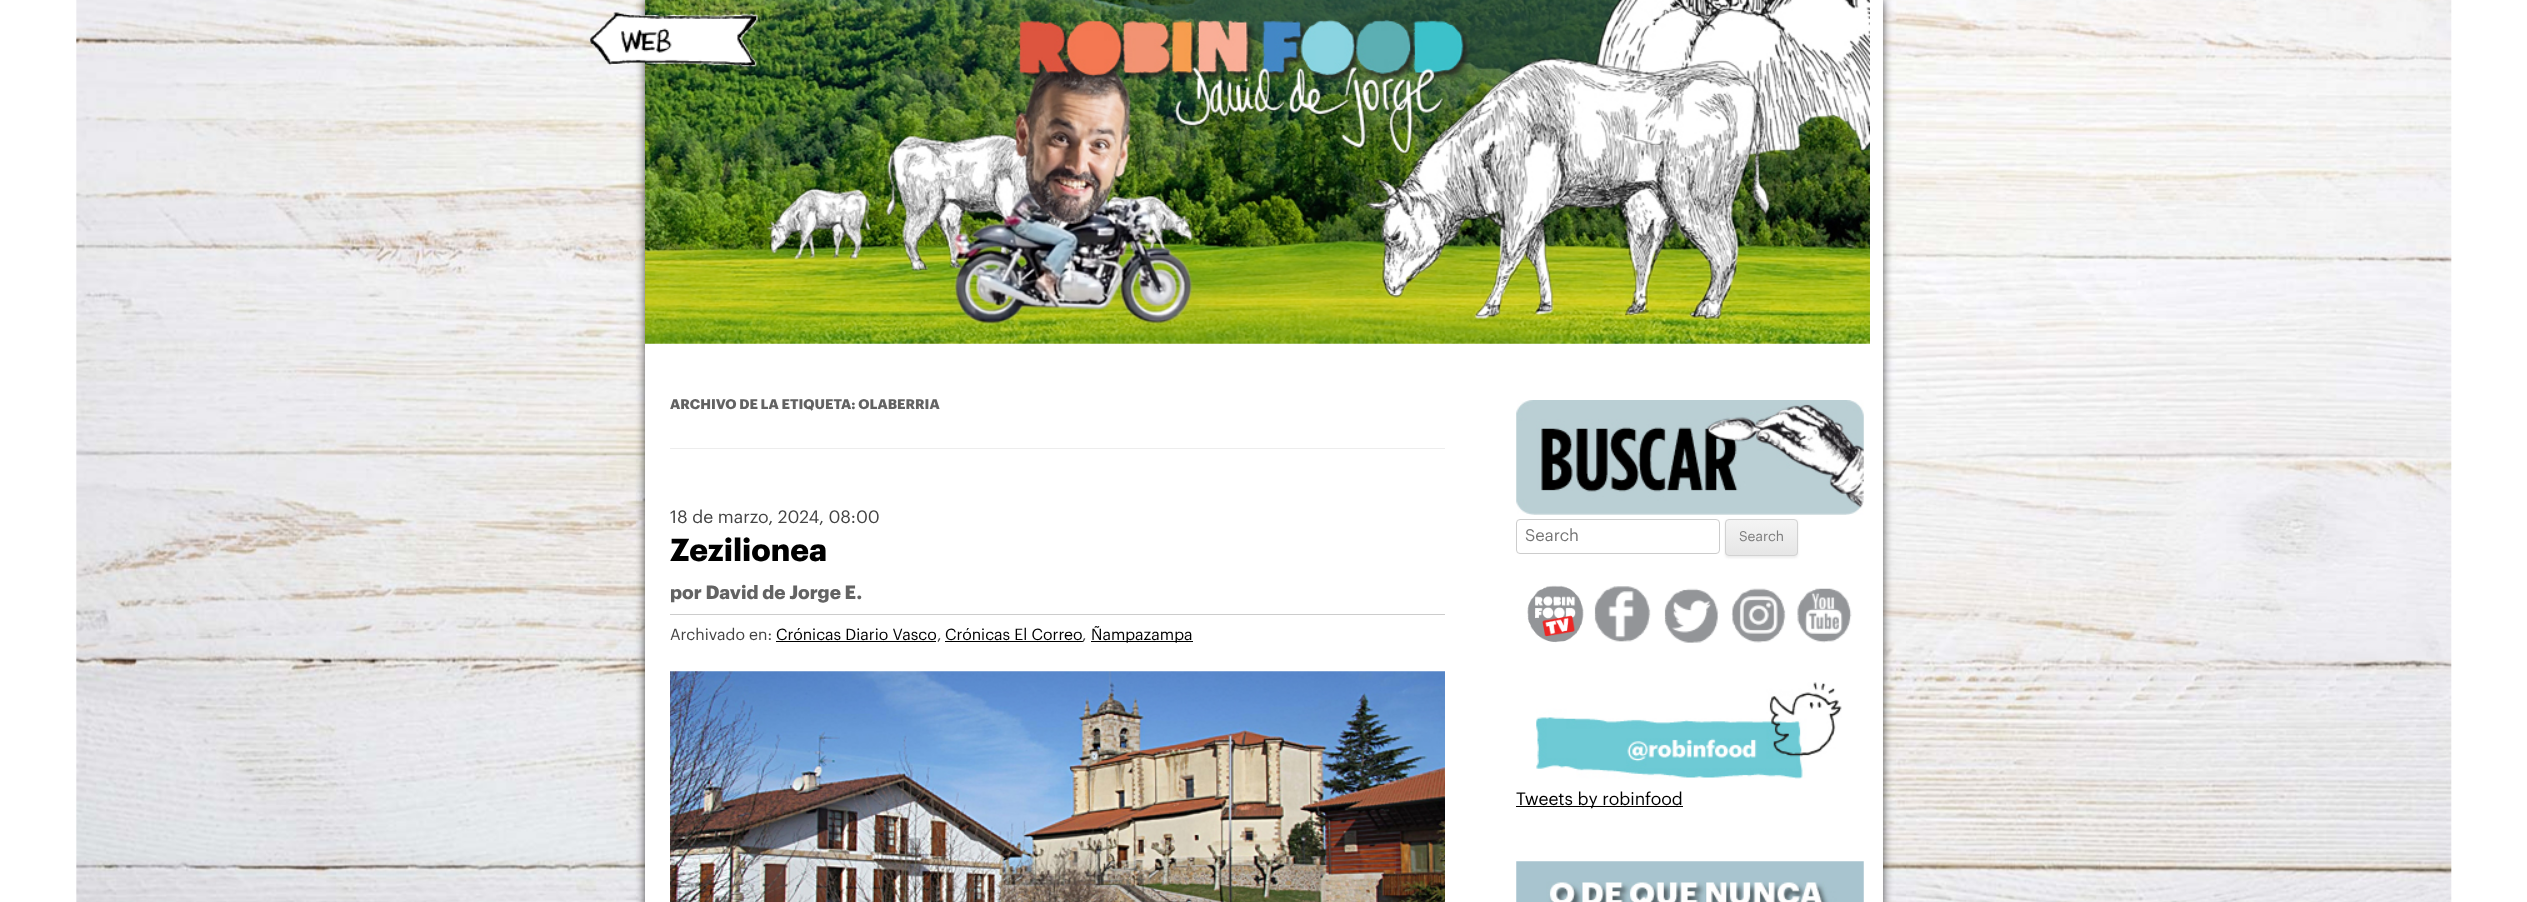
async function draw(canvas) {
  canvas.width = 2527
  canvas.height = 902
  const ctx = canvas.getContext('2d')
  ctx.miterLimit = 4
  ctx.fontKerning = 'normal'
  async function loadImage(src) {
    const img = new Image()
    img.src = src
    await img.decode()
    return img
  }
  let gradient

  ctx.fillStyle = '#fff'
  ctx.fillRect(0, 0, 2527, 902)
  ctx.drawImage(await loadImage('image0.png'), 76, 0, 2376, 902)
  ctx.fillStyle = '#000000b3'
  ctx.filter = 'blur(5px)'
  ctx.beginPath()
  ctx.rect(645, 0, 1238, 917)
  ctx.fill()
  ctx.filter = 'none'
  ctx.fillStyle = '#fff'
  ctx.fillRect(645, 0, 1238, 902)
  ctx.drawImage(await loadImage('image2.png'), 645, 0, 1225, 344)
  ctx.drawImage(await loadImage('image1.png'), 588, 12, 170, 55)
  ctx.fillStyle = '#ededed'
  ctx.fillRect(670, 448, 775, 1)
  ctx.font = 'bold 13.75px Graphik'
  ctx.fillStyle = '#636363'
  ctx.fillText('ARCHIVO DE LA ETIQUETA: OLABERRIA', 670, 409)
  ctx.fillStyle = '#ccc'
  ctx.fillRect(670, 614, 775, 1)
  ctx.font = '17.5px Graphik'
  ctx.fillStyle = '#444'
  ctx.fillText('18 de marzo, 2024, 08:00', 670, 523)
  ctx.font = 'bold 31.25px Graphik'
  ctx.fillStyle = '#000'
  ctx.fillText('Zezilionea', 670, 561)
  ctx.font = 'bold 18.75px Graphik'
  ctx.fillStyle = '#636363'
  ctx.fillText('por David de Jorge E.', 670, 599)
  ctx.font = '15.75px Graphik'
  ctx.fillStyle = '#444'
  ctx.fillText('Archivado en:', 670, 640)
  ctx.fillStyle = '#000'
  ctx.fillText('Crónicas Diario Vasco', 776, 640)
  ctx.fillRect(776, 641, 160, 1)
  ctx.fillStyle = '#444'
  ctx.fillText(',', 937, 640)
  ctx.fillStyle = '#000'
  ctx.fillText('Crónicas El Correo', 945, 640)
  ctx.fillRect(945, 641, 138, 1)
  ctx.fillStyle = '#444'
  ctx.fillText(',', 1082, 640)
  ctx.fillStyle = '#000'
  ctx.fillRect(1091, 641, 102, 1)
  ctx.fillText('Ñampazampa', 1091, 640)
  ctx.drawImage(await loadImage('image3.png'), 670, 671, 775, 231)
  ctx.drawImage(await loadImage('image4.png'), 1516, 400, 348, 115)
  ctx.beginPath()
  ctx.roundRect(1516.5, 519.5, 203, 34, 3.5)
  ctx.strokeStyle = '#ccc'
  ctx.stroke()
  ctx.font = '16.5px Graphik'
  ctx.fillStyle = '#757575'
  ctx.fillText('Search', 1525, 541)
  ctx.fillStyle = '#4040401a'
  ctx.filter = 'blur(1px)'
  ctx.beginPath()
  ctx.roundRect(1725, 520, 73, 38, 4)
  ctx.fill()
  ctx.filter = 'none'
  ctx.save()
  ctx.beginPath()
  ctx.roundRect(1725, 519, 73, 37, 4)
  ctx.clip()
  gradient = ctx.createLinearGradient(1761, 520, 1761, 555)
  gradient.addColorStop(0, '#f4f4f4')
  gradient.addColorStop(1, '#e6e6e6')
  ctx.fillStyle = gradient
  ctx.fillRect(1725, 520, 73, 35)
  ctx.restore()
  ctx.beginPath()
  ctx.roundRect(1725.5, 519.5, 72, 36, 3.5)
  ctx.strokeStyle = '#d2d2d2'
  ctx.stroke()
  ctx.font = '13.75px Graphik'
  ctx.fillStyle = '#7c7c7c'
  ctx.fillText('Search', 1739, 541)
  ctx.drawImage(await loadImage('image5.png'), 1527, 585, 57, 58)
  ctx.drawImage(await loadImage('image6.png'), 1594, 586, 57, 56)
  ctx.drawImage(await loadImage('image7.png'), 1664, 588, 55, 55)
  ctx.drawImage(await loadImage('image8.png'), 1731, 588, 55, 55)
  ctx.drawImage(await loadImage('image9.png'), 1797, 588, 55, 55)
  ctx.drawImage(await loadImage('image10.png'), 1536, 682, 306, 97)
  ctx.fillStyle = '#000'
  ctx.fillRect(1516, 806, 167, 1)
  ctx.font = '17.5px Graphik'
  ctx.fillText('Tweets by robinfood', 1516, 805)
  ctx.drawImage(await loadImage('image11.png'), 1516, 861, 348, 41)
}

draw(document.querySelector('canvas'))
